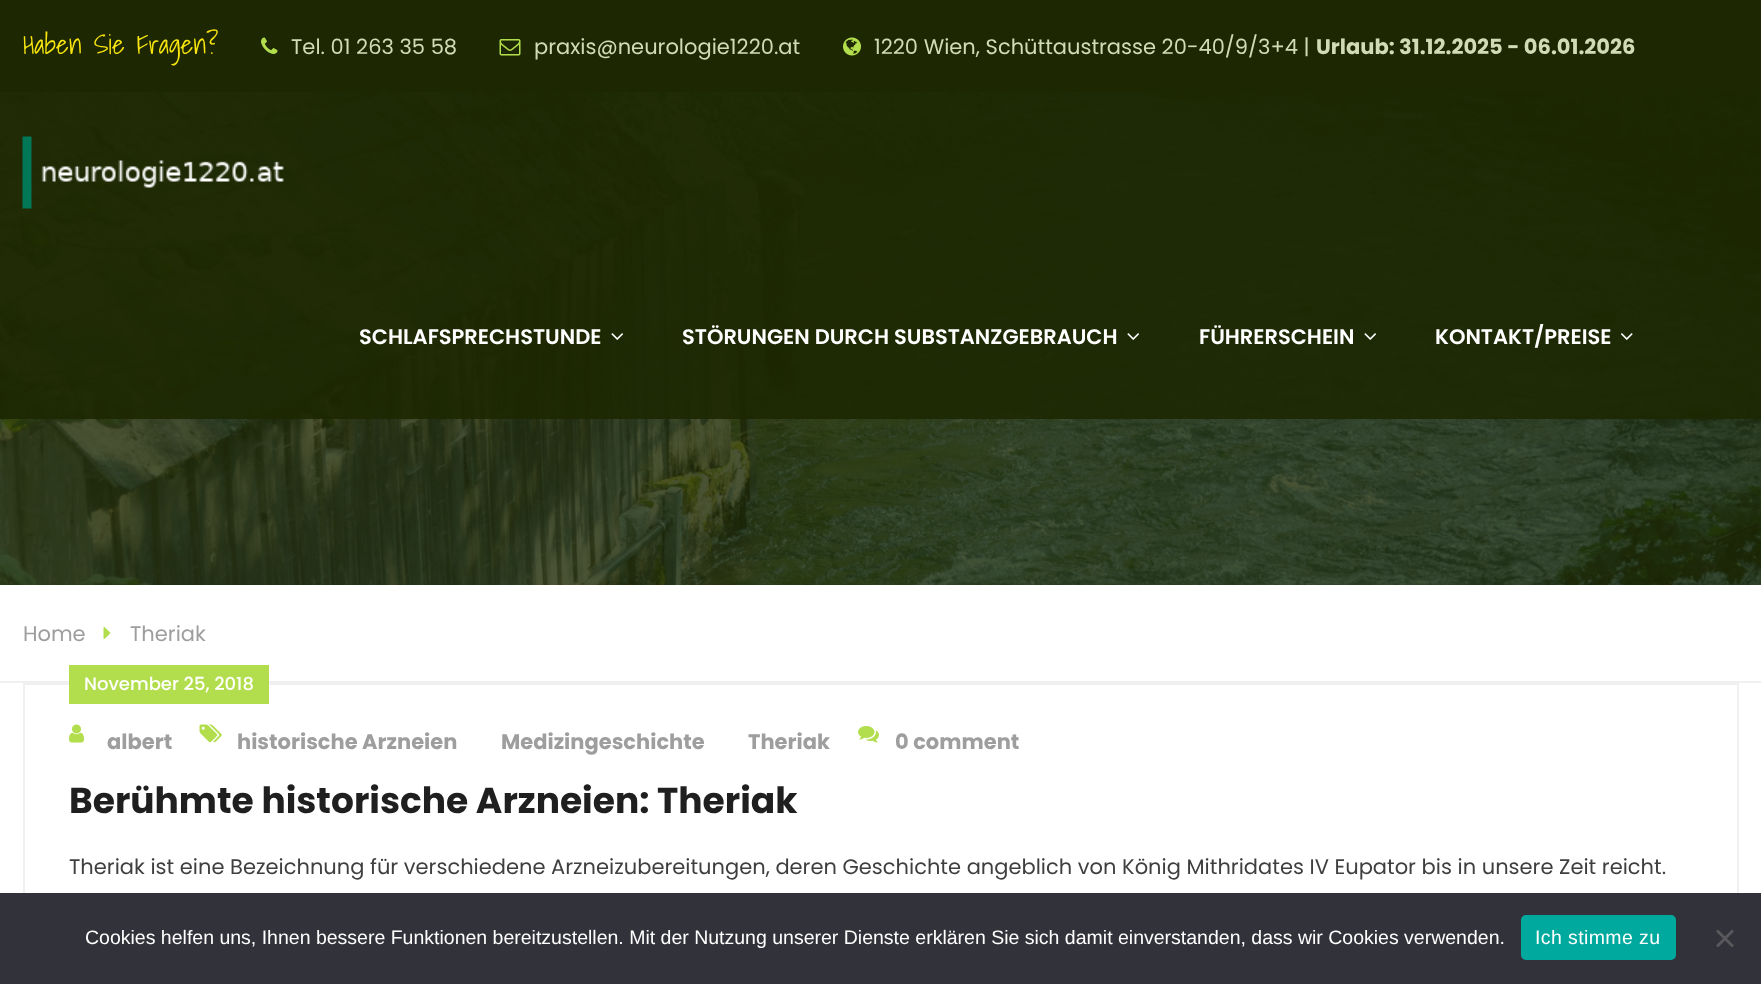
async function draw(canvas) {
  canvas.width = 1761
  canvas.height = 984
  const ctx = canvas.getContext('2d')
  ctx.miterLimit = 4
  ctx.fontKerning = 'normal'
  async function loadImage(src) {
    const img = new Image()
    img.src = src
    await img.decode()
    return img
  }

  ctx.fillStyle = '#fff'
  ctx.fillRect(0, 0, 1761, 984)
  ctx.fillStyle = '#1d2802'
  ctx.fillRect(0, 0, 1761, 92)
  ctx.font = '300 27px Shadows Into Light'
  ctx.fillStyle = '#f9e60e'
  ctx.fillText('Haben Sie Fragen?', 23, 54)
  ctx.drawImage(await loadImage('image0.png'), 261, 37, 17, 17)
  ctx.font = '21px Poppins'
  ctx.fillStyle = '#d1dbb8'
  ctx.fillText('Tel. 01 263 35 58', 291, 54)
  ctx.drawImage(await loadImage('image1.png'), 499, 39, 22, 17)
  ctx.fillText('praxis@neurologie1220.at', 534, 54)
  ctx.drawImage(await loadImage('image2.png'), 843, 37, 18, 19)
  ctx.fillText('1220 Wien, Schüttaustrasse 20-40/9/3+4 |', 874, 54)
  ctx.font = 'bold 21px Poppins'
  ctx.fillText('Urlaub: 31.12.2025 - 06.01.2026', 1316, 54)
  ctx.drawImage(await loadImage('image8.png'), 0, 92, 1761, 493)
  ctx.fillStyle = '#1d2802e6'
  ctx.fillRect(0, 92, 1761, 327)
  ctx.drawImage(await loadImage('image3.png'), 22, 136, 262, 73)
  ctx.font = '600 21px Poppins'
  ctx.fillStyle = '#fff'
  ctx.fillText('SCHLAFSPRECHSTUNDE', 359, 344)
  ctx.drawImage(await loadImage('image4.png'), 611, 333, 12, 7)
  ctx.fillText('STÖRUNGEN DURCH SUBSTANZGEBRAUCH', 682, 344)
  ctx.drawImage(await loadImage('image5.png'), 1127, 333, 12, 7)
  ctx.fillText('FÜHRERSCHEIN', 1199, 344)
  ctx.drawImage(await loadImage('image6.png'), 1364, 333, 12, 7)
  ctx.fillText('KONTAKT/PREISE', 1435, 344)
  ctx.drawImage(await loadImage('image7.png'), 1621, 333, 12, 7)
  ctx.fillStyle = '#f0f0f0'
  ctx.fillRect(0, 681, 1761, 2)
  ctx.font = '21px Poppins'
  ctx.fillStyle = '#9e9e9e'
  ctx.fillText('Home', 23, 641)
  ctx.drawImage(await loadImage('image9.png'), 103, 627, 8, 12)
  ctx.fillText('Theriak', 130, 641)
  ctx.strokeStyle = '#f0f0f0'
  ctx.lineWidth = 2
  ctx.strokeRect(24, 684, 1714, 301)
  ctx.fillStyle = '#b2dd4c'
  ctx.fillRect(69, 665, 200, 39)
  ctx.font = '500 18px Poppins'
  ctx.fillStyle = '#fff'
  ctx.fillText('November 25, 2018', 84, 690)
  ctx.drawImage(await loadImage('image10.png'), 69, 724, 15, 19)
  ctx.font = 'bold 21px Poppins'
  ctx.fillStyle = '#9e9e9e'
  ctx.fillText('albert', 107, 749)
  ctx.drawImage(await loadImage('image11.png'), 199, 724, 23, 19)
  ctx.fillText('historische Arzneien', 237, 749)
  ctx.fillText('Medizingeschichte', 501, 749)
  ctx.fillText('Theriak', 748, 749)
  ctx.drawImage(await loadImage('image12.png'), 858, 726, 21, 17)
  ctx.fillText('0 comment', 895, 749)
  ctx.font = 'bold 36px Poppins'
  ctx.fillStyle = '#1f1f1f'
  ctx.fillText('Berühmte historische Arzneien: Theriak', 69, 813)
  ctx.font = '21px Poppins'
  ctx.fillStyle = '#3f3f3f'
  ctx.fillText('Theriak ist eine Bezeichnung für verschiedene Arzneizubereitungen, deren Geschichte angeblich von König Mithridates IV Eupator bis in unsere Zeit reicht.', 69, 874)
  ctx.fillStyle = '#32323a'
  ctx.fillRect(0, 893, 1761, 91)
  ctx.font = '19.5px Liberation Sans'
  ctx.fillStyle = '#fff'
  ctx.fillText('Cookies helfen uns, Ihnen bessere Funktionen bereitzustellen. Mit der Nutzung unserer Dienste erklären Sie sich damit einverstanden, dass wir Cookies verwenden.', 85, 944)
  ctx.fillStyle = '#00a99d'
  ctx.beginPath()
  ctx.roundRect(1521, 915, 155, 45, 5)
  ctx.fill()
  ctx.letterSpacing = '0.4px'
  ctx.fillStyle = '#fff'
  ctx.fillText('Ich stimme zu', 1535, 944)
  ctx.fillStyle = '#59595d'
  ctx.beginPath()
  ctx.moveTo(1732, 929.5)
  ctx.lineTo(1734, 931.5)
  ctx.lineTo(1718, 947.5)
  ctx.lineTo(1716, 945.5)
  ctx.closePath()
  ctx.fill()
  ctx.beginPath()
  ctx.moveTo(1716, 931.5)
  ctx.lineTo(1718, 929.5)
  ctx.lineTo(1734, 945.5)
  ctx.lineTo(1732, 947.5)
  ctx.closePath()
  ctx.fill()
}

draw(document.querySelector('canvas'))
